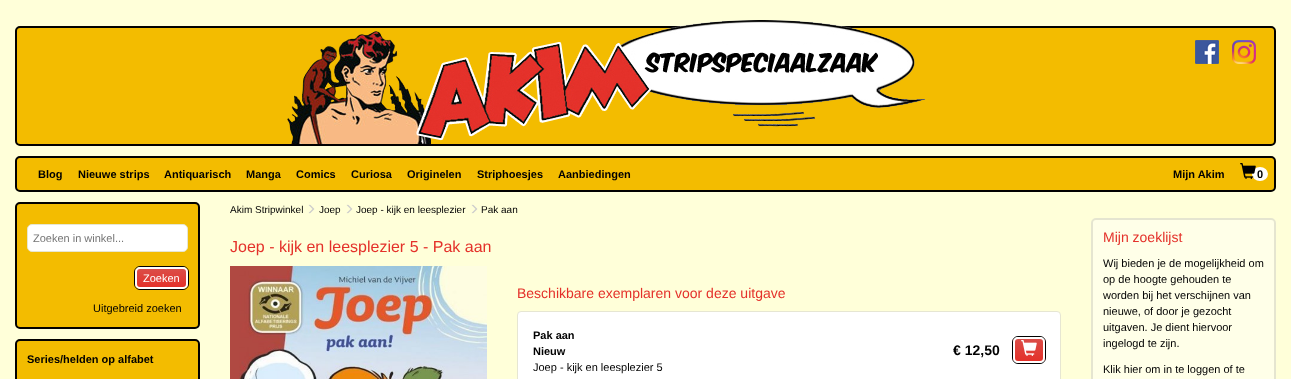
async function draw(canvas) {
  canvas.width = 1291
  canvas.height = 379
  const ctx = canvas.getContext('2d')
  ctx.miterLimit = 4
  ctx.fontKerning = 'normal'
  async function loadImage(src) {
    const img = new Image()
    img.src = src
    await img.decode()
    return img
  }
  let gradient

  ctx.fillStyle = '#ffffd9'
  ctx.fillRect(0, 0, 1291, 379)
  ctx.fillStyle = '#f3bc00'
  ctx.beginPath()
  ctx.roundRect(16, 27, 1259, 118, 4)
  ctx.fill()
  ctx.strokeStyle = '#020100'
  ctx.lineWidth = 2
  ctx.stroke()
  ctx.drawImage(await loadImage('image0.png'), 287, 20, 639, 124)
  ctx.drawImage(await loadImage('image1.png'), 1195, 40, 24, 24)
  ctx.drawImage(await loadImage('image2.png'), 1232, 40, 24, 24)
  ctx.beginPath()
  ctx.roundRect(16, 157, 1259, 34, 4)
  ctx.fill()
  ctx.stroke()
  ctx.beginPath()
  ctx.roundRect(17, 158, 1257, 32, 5)
  ctx.fill()
  ctx.font = 'bold 11px Liberation Sans'
  ctx.fillStyle = '#000'
  ctx.fillText('Blog', 38, 178)
  ctx.fillText('Nieuwe strips', 78, 178)
  ctx.fillText('Antiquarisch', 164, 178)
  ctx.fillText('Manga', 246, 178)
  ctx.fillText('Comics', 296, 178)
  ctx.fillText('Curiosa', 351, 178)
  ctx.fillText('Originelen', 407, 178)
  ctx.fillText('Striphoesjes', 477, 178)
  ctx.fillText('Aanbiedingen', 558, 178)
  ctx.fillText('Mijn Akim', 1173, 178)
  ctx.fillStyle = '#fff'
  ctx.beginPath()
  ctx.ellipse(1260, 174, 8, 7, 0, 0, 2 * Math.PI)
  ctx.fill()
  ctx.drawImage(await loadImage('image3.png'), 1240, 163, 16, 16)
  ctx.fillStyle = '#000'
  ctx.fillText('0', 1257, 178)
  ctx.fillStyle = '#f3bc00'
  ctx.beginPath()
  ctx.roundRect(16, 203, 183, 125, 4)
  ctx.fill()
  ctx.stroke()
  ctx.fillStyle = '#fff'
  ctx.beginPath()
  ctx.roundRect(27.5, 224.5, 160, 27, 4.5)
  ctx.fill()
  ctx.strokeStyle = '#e6e6d2'
  ctx.lineWidth = 1
  ctx.stroke()
  ctx.font = '11px Liberation Sans'
  ctx.fillStyle = '#757575'
  ctx.fillText('Zoeken in winkel...', 33, 242)
  ctx.beginPath()
  ctx.roundRect(134.5, 266.5, 54, 23, 5.5)
  ctx.strokeStyle = '#000'
  ctx.stroke()
  ctx.save()
  ctx.beginPath()
  ctx.roundRect(135, 267, 53, 22, 5)
  ctx.clip()
  gradient = ctx.createLinearGradient(162, 269, 162, 287)
  gradient.addColorStop(0.01, '#e25651')
  gradient.addColorStop(0.01, '#db4d48')
  gradient.addColorStop(1, '#e4312a')
  gradient.addColorStop(1, '#e25651')
  gradient.addColorStop(1, '#e4312a')
  ctx.fillStyle = gradient
  ctx.fillRect(135, 269, 53, 18)
  ctx.restore()
  ctx.beginPath()
  ctx.roundRect(136, 268, 51, 20, 4)
  ctx.strokeStyle = '#fff'
  ctx.lineWidth = 2
  ctx.stroke()
  ctx.fillStyle = '#fff'
  ctx.fillText('Zoeken', 143, 282)
  ctx.fillStyle = '#000'
  ctx.fillText('Uitgebreid zoeken', 93, 312)
  ctx.fillStyle = '#f3bc00'
  ctx.beginPath()
  ctx.roundRect(16, 340, 183, 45, 4)
  ctx.fill()
  ctx.strokeStyle = '#020100'
  ctx.stroke()
  ctx.font = 'bold 11px Liberation Sans'
  ctx.fillStyle = '#000'
  ctx.fillText('Series/helden op alfabet', 27, 363)
  ctx.font = '10px Liberation Sans'
  ctx.fillText('Akim Stripwinkel', 230, 213)
  ctx.drawImage(await loadImage('image4.png'), 308, 204, 7, 10)
  ctx.fillText('Joep', 319, 213)
  ctx.drawImage(await loadImage('image4.png'), 346, 204, 7, 10)
  ctx.fillText('Joep - kijk en leesplezier', 356, 213)
  ctx.drawImage(await loadImage('image4.png'), 471, 204, 7, 10)
  ctx.fillText('Pak aan', 481, 213)
  ctx.font = '16px Liberation Sans'
  ctx.fillStyle = '#e4312a'
  ctx.fillText('Joep - kijk en leesplezier 5 - Pak aan', 230, 252)
  ctx.drawImage(await loadImage('image5.png'), 230, 266, 257, 113)
  ctx.font = '14px Liberation Sans'
  ctx.fillText('Beschikbare exemplaren voor deze uitgave', 517, 298)
  ctx.fillStyle = '#fff'
  ctx.beginPath()
  ctx.roundRect(517.5, 311.5, 543, 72, 3.5)
  ctx.fill()
  ctx.strokeStyle = '#e6e6d2'
  ctx.lineWidth = 1
  ctx.stroke()
  ctx.font = 'bold 11px Liberation Sans'
  ctx.fillStyle = '#000'
  ctx.fillText('Pak aan', 533, 339)
  ctx.fillText('Nieuw', 533, 355)
  ctx.font = '11px Liberation Sans'
  ctx.fillText('Joep - kijk en leesplezier 5', 533, 371)
  ctx.font = 'bold 14px Liberation Sans'
  ctx.fillText('€ 12,50', 953, 355)
  ctx.beginPath()
  ctx.roundRect(1012.5, 336.5, 33, 27, 5.5)
  ctx.strokeStyle = '#000'
  ctx.stroke()
  ctx.save()
  ctx.beginPath()
  ctx.roundRect(1013, 337, 32, 26, 5)
  ctx.clip()
  gradient = ctx.createLinearGradient(1029, 339, 1029, 361)
  gradient.addColorStop(0.01, '#e25651')
  gradient.addColorStop(0.01, '#db4d48')
  gradient.addColorStop(1, '#e4312a')
  gradient.addColorStop(1, '#e25651')
  gradient.addColorStop(1, '#e4312a')
  ctx.fillStyle = gradient
  ctx.fillRect(1013, 339, 32, 22)
  ctx.restore()
  ctx.beginPath()
  ctx.roundRect(1014, 338, 30, 24, 4)
  ctx.strokeStyle = '#fff'
  ctx.lineWidth = 2
  ctx.stroke()
  ctx.drawImage(await loadImage('image6.png'), 1021, 340, 16, 16)
  ctx.fillStyle = '#ffffe8'
  ctx.beginPath()
  ctx.roundRect(1091, 218, 185, 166, 5)
  ctx.fill()
  ctx.beginPath()
  ctx.roundRect(1092, 219, 183, 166, 4)
  ctx.strokeStyle = '#0000001a'
  ctx.stroke()
  ctx.font = '14px Liberation Sans'
  ctx.fillStyle = '#e4312a'
  ctx.fillText('Mijn zoeklijst', 1103, 242)
  ctx.font = '11px Liberation Sans'
  ctx.fillStyle = '#000'
  ctx.fillText('Wij bieden je de mogelijkheid om', 1103, 267)
  ctx.fillText('op de hoogte gehouden te', 1103, 283)
  ctx.fillText('worden bij het verschijnen van', 1103, 299)
  ctx.fillText('nieuwe, of door je gezocht', 1103, 315)
  ctx.fillText('uitgaven. Je dient hiervoor', 1103, 331)
  ctx.fillText('ingelogd te zijn.', 1103, 347)
  ctx.fillText('Klik hier om in te loggen of te', 1103, 373)
}

draw(document.querySelector('canvas'))
